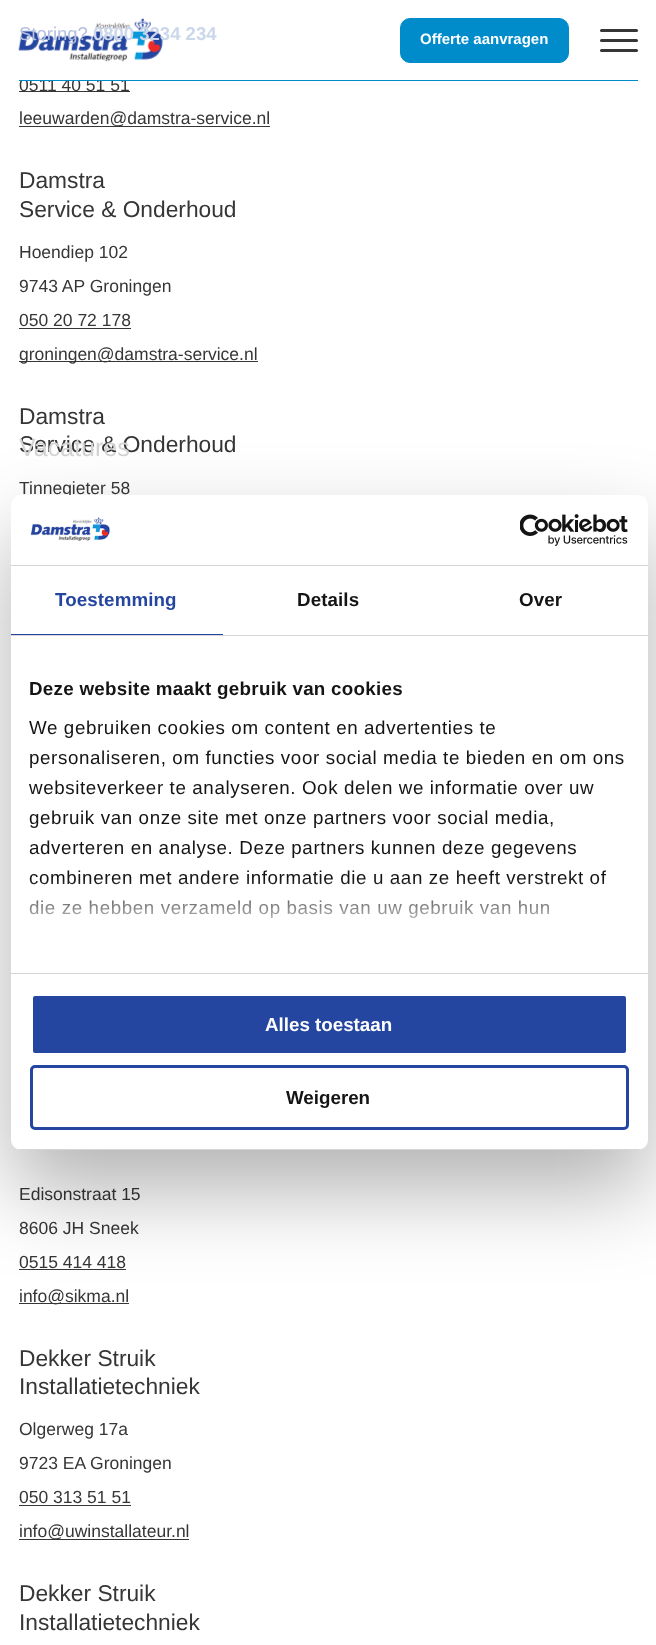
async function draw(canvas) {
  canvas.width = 656
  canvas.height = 1645
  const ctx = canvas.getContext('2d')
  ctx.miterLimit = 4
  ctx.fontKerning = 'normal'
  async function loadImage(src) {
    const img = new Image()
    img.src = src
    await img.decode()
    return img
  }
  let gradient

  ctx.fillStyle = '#fff'
  ctx.fillRect(0, 0, 656, 1645)
  ctx.fillStyle = '#363636'
  ctx.fillRect(19, 91, 111, 1)
  ctx.font = '17.5px Liberation Sans'
  ctx.fillText('0511 40 51 51', 19, 91)
  ctx.fillStyle = '#fff'
  ctx.fillRect(20, 78, 106, 3)
  ctx.fillStyle = '#008bcb'
  ctx.fillRect(19, 80, 619, 1)
  ctx.drawImage(await loadImage('image0.png'), 18, 18, 145, 44)
  ctx.font = '18.5px Liberation Sans'
  ctx.fillStyle = '#b5c0df'
  ctx.fillText('Storing?', 19, 40)
  ctx.font = 'bold 18.5px Liberation Sans'
  ctx.fillStyle = '#cbd7ea'
  ctx.fillText('0800 3234 234', 93, 40)
  ctx.font = '22.75px Liberation Sans'
  ctx.fillStyle = '#363636'
  ctx.fillText('Service & Onderhoud', 19, 452)
  ctx.font = '25px Liberation Sans'
  ctx.fillStyle = '#d4d4d4'
  ctx.fillText('Vacatures', 19, 456)
  ctx.fillStyle = '#008bcb'
  ctx.beginPath()
  ctx.roundRect(400.5, 18.5, 168, 44, 9.5)
  ctx.fill()
  ctx.strokeStyle = '#008bcb'
  ctx.stroke()
  ctx.font = 'bold 15px Liberation Sans'
  ctx.fillStyle = '#fff'
  ctx.fillText('Offerte aanvragen', 420, 44)
  ctx.fillStyle = '#363636'
  ctx.beginPath()
  ctx.roundRect(600, 39, 38, 3, 1.5)
  ctx.fill()
  ctx.beginPath()
  ctx.roundRect(600, 29, 38, 3, 1.5)
  ctx.fill()
  ctx.beginPath()
  ctx.roundRect(600, 49, 38, 3, 1.5)
  ctx.fill()
  ctx.fillRect(19, 126, 251, 1)
  ctx.font = '17.5px Liberation Sans'
  ctx.fillText('leeuwarden@damstra-service.nl', 19, 124)
  ctx.font = '22.75px Liberation Sans'
  ctx.fillText('Damstra', 19, 188)
  ctx.fillText('Service & Onderhoud', 19, 217)
  ctx.font = '17.5px Liberation Sans'
  ctx.fillText('Hoendiep 102', 19, 258)
  ctx.fillText('9743 AP Groningen', 19, 292)
  ctx.fillText('050 20 72 178', 19, 326)
  ctx.fillRect(19, 328, 112, 1)
  ctx.fillRect(19, 361, 239, 1)
  ctx.fillText('groningen@damstra-service.nl', 19, 360)
  ctx.font = '22.75px Liberation Sans'
  ctx.fillText('Damstra', 19, 424)
  ctx.font = '17.5px Liberation Sans'
  ctx.fillText('Tinnegieter 58', 19, 494)
  ctx.fillText('Edisonstraat 15', 19, 1200)
  ctx.fillText('8606 JH Sneek', 19, 1234)
  ctx.fillText('0515 414 418', 19, 1268)
  ctx.fillRect(19, 1269, 107, 1)
  ctx.fillRect(19, 1303, 110, 1)
  ctx.fillText('info@sikma.nl', 19, 1302)
  ctx.font = '22.75px Liberation Sans'
  ctx.fillText('Dekker Struik', 19, 1366)
  ctx.fillText('Installatietechniek', 19, 1394)
  ctx.font = '17.5px Liberation Sans'
  ctx.fillText('Olgerweg 17a', 19, 1435)
  ctx.fillText('9723 EA Groningen', 19, 1469)
  ctx.fillText('050 313 51 51', 19, 1503)
  ctx.fillRect(19, 1505, 112, 1)
  ctx.fillRect(19, 1539, 170, 1)
  ctx.fillText('info@uwinstallateur.nl', 19, 1537)
  ctx.font = '22.75px Liberation Sans'
  ctx.fillText('Dekker Struik', 19, 1601)
  ctx.fillText('Installatietechniek', 19, 1630)
  ctx.fillStyle = '#0000004d'
  ctx.filter = 'blur(42.5px)'
  ctx.beginPath()
  ctx.roundRect(11, 535, 637, 655, 10)
  ctx.fill()
  ctx.filter = 'none'
  ctx.fillStyle = '#fff'
  ctx.beginPath()
  ctx.roundRect(11, 495, 637, 655, 10)
  ctx.fill()
  ctx.fillStyle = '#d6d6d6'
  ctx.fillRect(11, 565, 637, 1)
  ctx.drawImage(await loadImage('image1.png'), 30, 517, 80, 25)
  ctx.drawImage(await loadImage('image2.png'), 520, 514, 108, 32)
  ctx.fillRect(11, 635, 637, 1)
  ctx.fillStyle = '#2546a0'
  ctx.fillRect(11, 634, 212, 1)
  ctx.letterSpacing = '0.1px'
  ctx.font = 'bold 18.75px Liberation Sans'
  ctx.fillText('Toestemming', 55, 606)
  ctx.fillStyle = '#141414'
  ctx.fillText('Details', 297, 606)
  ctx.fillText('Over', 519, 606)
  ctx.fillStyle = '#d6d6d6'
  ctx.fillRect(11, 973, 637, 1)
  ctx.letterSpacing = '0.3px'
  ctx.fillStyle = '#141414'
  ctx.fillText('Deze website maakt gebruik van cookies', 29, 695)
  ctx.letterSpacing = '0.62px'
  ctx.font = '18.75px Liberation Sans'
  ctx.fillText('We gebruiken cookies om content en advertenties te', 29, 734)
  ctx.fillText('personaliseren, om functies voor social media te bieden en om ons', 29, 764)
  ctx.fillText('websiteverkeer te analyseren. Ook delen we informatie over uw', 29, 794)
  ctx.fillText('gebruik van onze site met onze partners voor social media,', 29, 824)
  ctx.fillText('adverteren en analyse. Deze partners kunnen deze gegevens', 29, 854)
  ctx.fillText('combineren met andere informatie die u aan ze heeft verstrekt of', 29, 884)
  ctx.fillText('die ze hebben verzameld op basis van uw gebruik van hun', 29, 914)
  gradient = ctx.createLinearGradient(321, 973, 321, 879)
  gradient.addColorStop(0, '#fff')
  gradient.addColorStop(0.5, '#ffffffcc')
  gradient.addColorStop(1, '#ffffff00')
  ctx.fillStyle = gradient
  ctx.fillRect(29, 880, 575, 38)
  ctx.save()
  ctx.beginPath()
  ctx.roundRect(11, 495, 637, 655, 10)
  ctx.clip()
  ctx.fillStyle = '#d6d6d6'
  ctx.fillRect(11, 1149, 637, 1)
  ctx.restore()
  ctx.fillStyle = '#2546a0'
  ctx.beginPath()
  ctx.roundRect(31.5, 994.5, 596, 60, 3.5)
  ctx.fill()
  ctx.strokeStyle = '#fff'
  ctx.lineWidth = 3
  ctx.stroke()
  ctx.letterSpacing = '0px'
  ctx.font = 'bold 18.75px Liberation Sans'
  ctx.fillStyle = '#fff'
  ctx.fillText('Alles toestaan', 265, 1031)
  ctx.beginPath()
  ctx.roundRect(31.5, 1066.5, 596, 62, 3.5)
  ctx.strokeStyle = '#2546a0'
  ctx.stroke()
  ctx.fillStyle = '#141414'
  ctx.fillText('Weigeren', 286, 1104)
}

draw(document.querySelector('canvas'))
